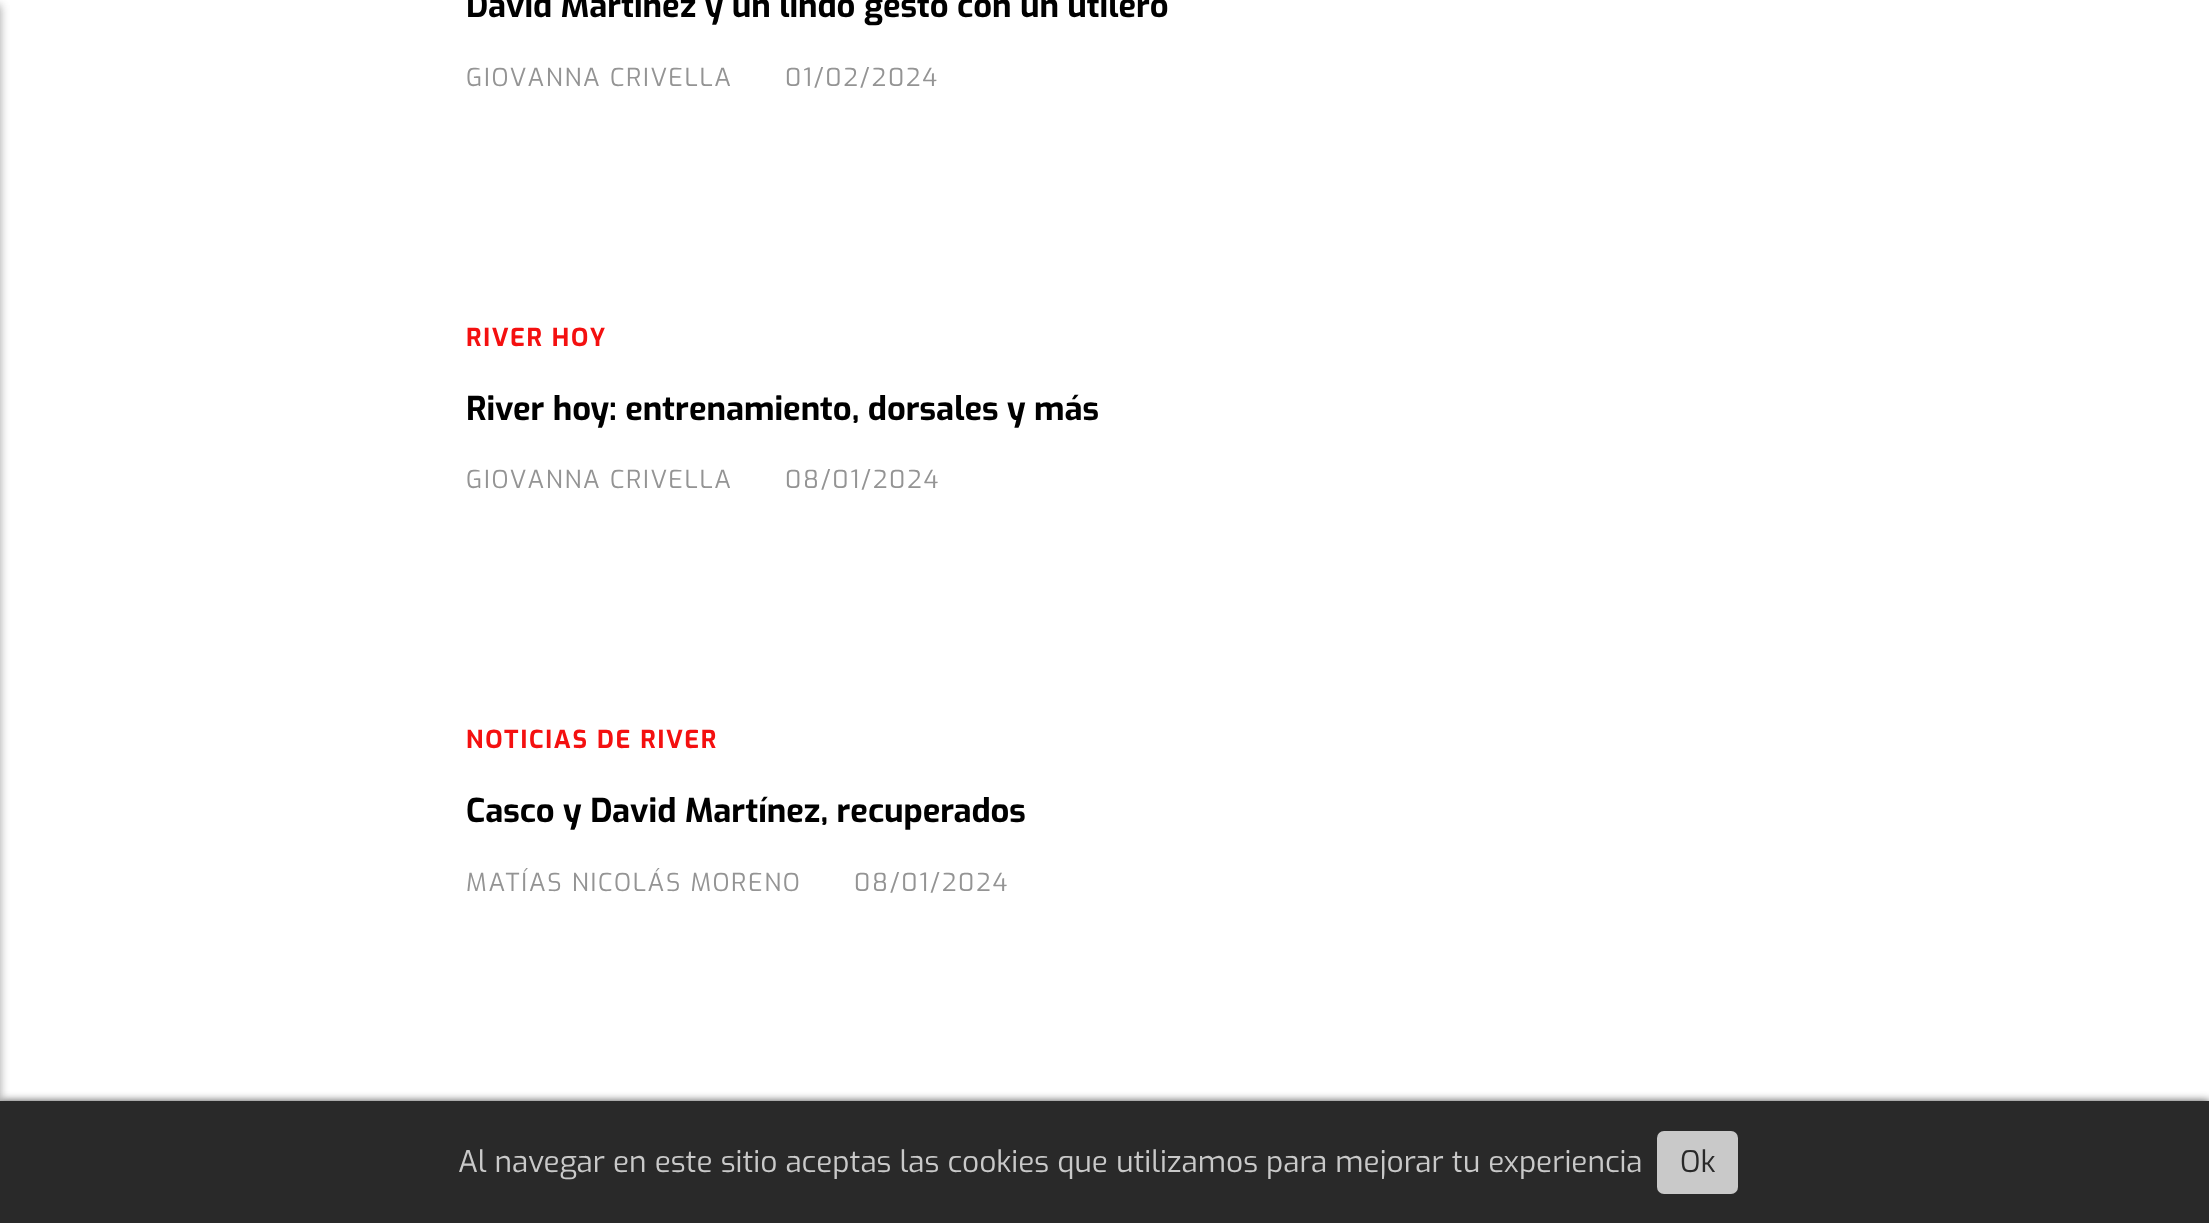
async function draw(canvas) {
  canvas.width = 2209
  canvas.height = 1223
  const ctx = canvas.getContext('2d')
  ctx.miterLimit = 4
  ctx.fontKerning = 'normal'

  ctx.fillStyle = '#fff'
  ctx.fillRect(0, 0, 2209, 1223)
  ctx.fillStyle = '#0000003b'
  ctx.filter = 'blur(5px)'
  ctx.beginPath()
  ctx.rect(-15, 5, 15, 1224)
  ctx.fill()
  ctx.filter = 'none'
  ctx.fillStyle = '#00000029'
  ctx.filter = 'blur(5px)'
  ctx.beginPath()
  ctx.rect(-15, 5, 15, 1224)
  ctx.fill()
  ctx.filter = 'none'
  ctx.font = 'bold 32.75px Exo'
  ctx.fillStyle = '#000'
  ctx.fillText('David Martínez y un lindo gesto con un utilero', 466, 17)
  ctx.letterSpacing = '1.75px'
  ctx.font = '24.75px Exo'
  ctx.fillStyle = '#949494'
  ctx.fillText('GIOVANNA CRIVELLA', 466, 86)
  ctx.fillText('01/02/2024', 785, 86)
  ctx.font = 'bold 24.75px Exo'
  ctx.fillStyle = '#f41010'
  ctx.fillText('RIVER HOY', 466, 346)
  ctx.letterSpacing = '0px'
  ctx.font = 'bold 32.75px Exo'
  ctx.fillStyle = '#000'
  ctx.fillText('River hoy: entrenamiento, dorsales y más', 466, 420)
  ctx.letterSpacing = '1.75px'
  ctx.font = '24.75px Exo'
  ctx.fillStyle = '#949494'
  ctx.fillText('GIOVANNA CRIVELLA', 466, 488)
  ctx.fillText('08/01/2024', 785, 488)
  ctx.font = 'bold 24.75px Exo'
  ctx.fillStyle = '#f41010'
  ctx.fillText('NOTICIAS DE RIVER', 466, 748)
  ctx.letterSpacing = '0px'
  ctx.font = 'bold 32.75px Exo'
  ctx.fillStyle = '#000'
  ctx.fillText('Casco y David Martínez, recuperados', 466, 822)
  ctx.letterSpacing = '1.75px'
  ctx.font = '24.75px Exo'
  ctx.fillStyle = '#949494'
  ctx.fillText('MATÍAS NICOLÁS MORENO', 466, 891)
  ctx.fillText('08/01/2024', 854, 891)
  ctx.fillStyle = '#494949'
  ctx.filter = 'blur(4.5px)'
  ctx.beginPath()
  ctx.rect(0, 1101, 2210, 122)
  ctx.fill()
  ctx.filter = 'none'
  ctx.fillStyle = '#292929'
  ctx.fillRect(0, 1101, 2209, 122)
  ctx.letterSpacing = '0px'
  ctx.font = '29.75px Exo'
  ctx.fillStyle = '#c9c9c9'
  ctx.fillText('Al navegar en este sitio aceptas las cookies que utilizamos para mejorar tu experiencia', 458, 1172)
  ctx.beginPath()
  ctx.roundRect(1657, 1131, 81, 63, 7)
  ctx.fill()
  ctx.fillStyle = '#292929'
  ctx.fillText('Ok', 1680, 1172)
}

draw(document.querySelector('canvas'))
